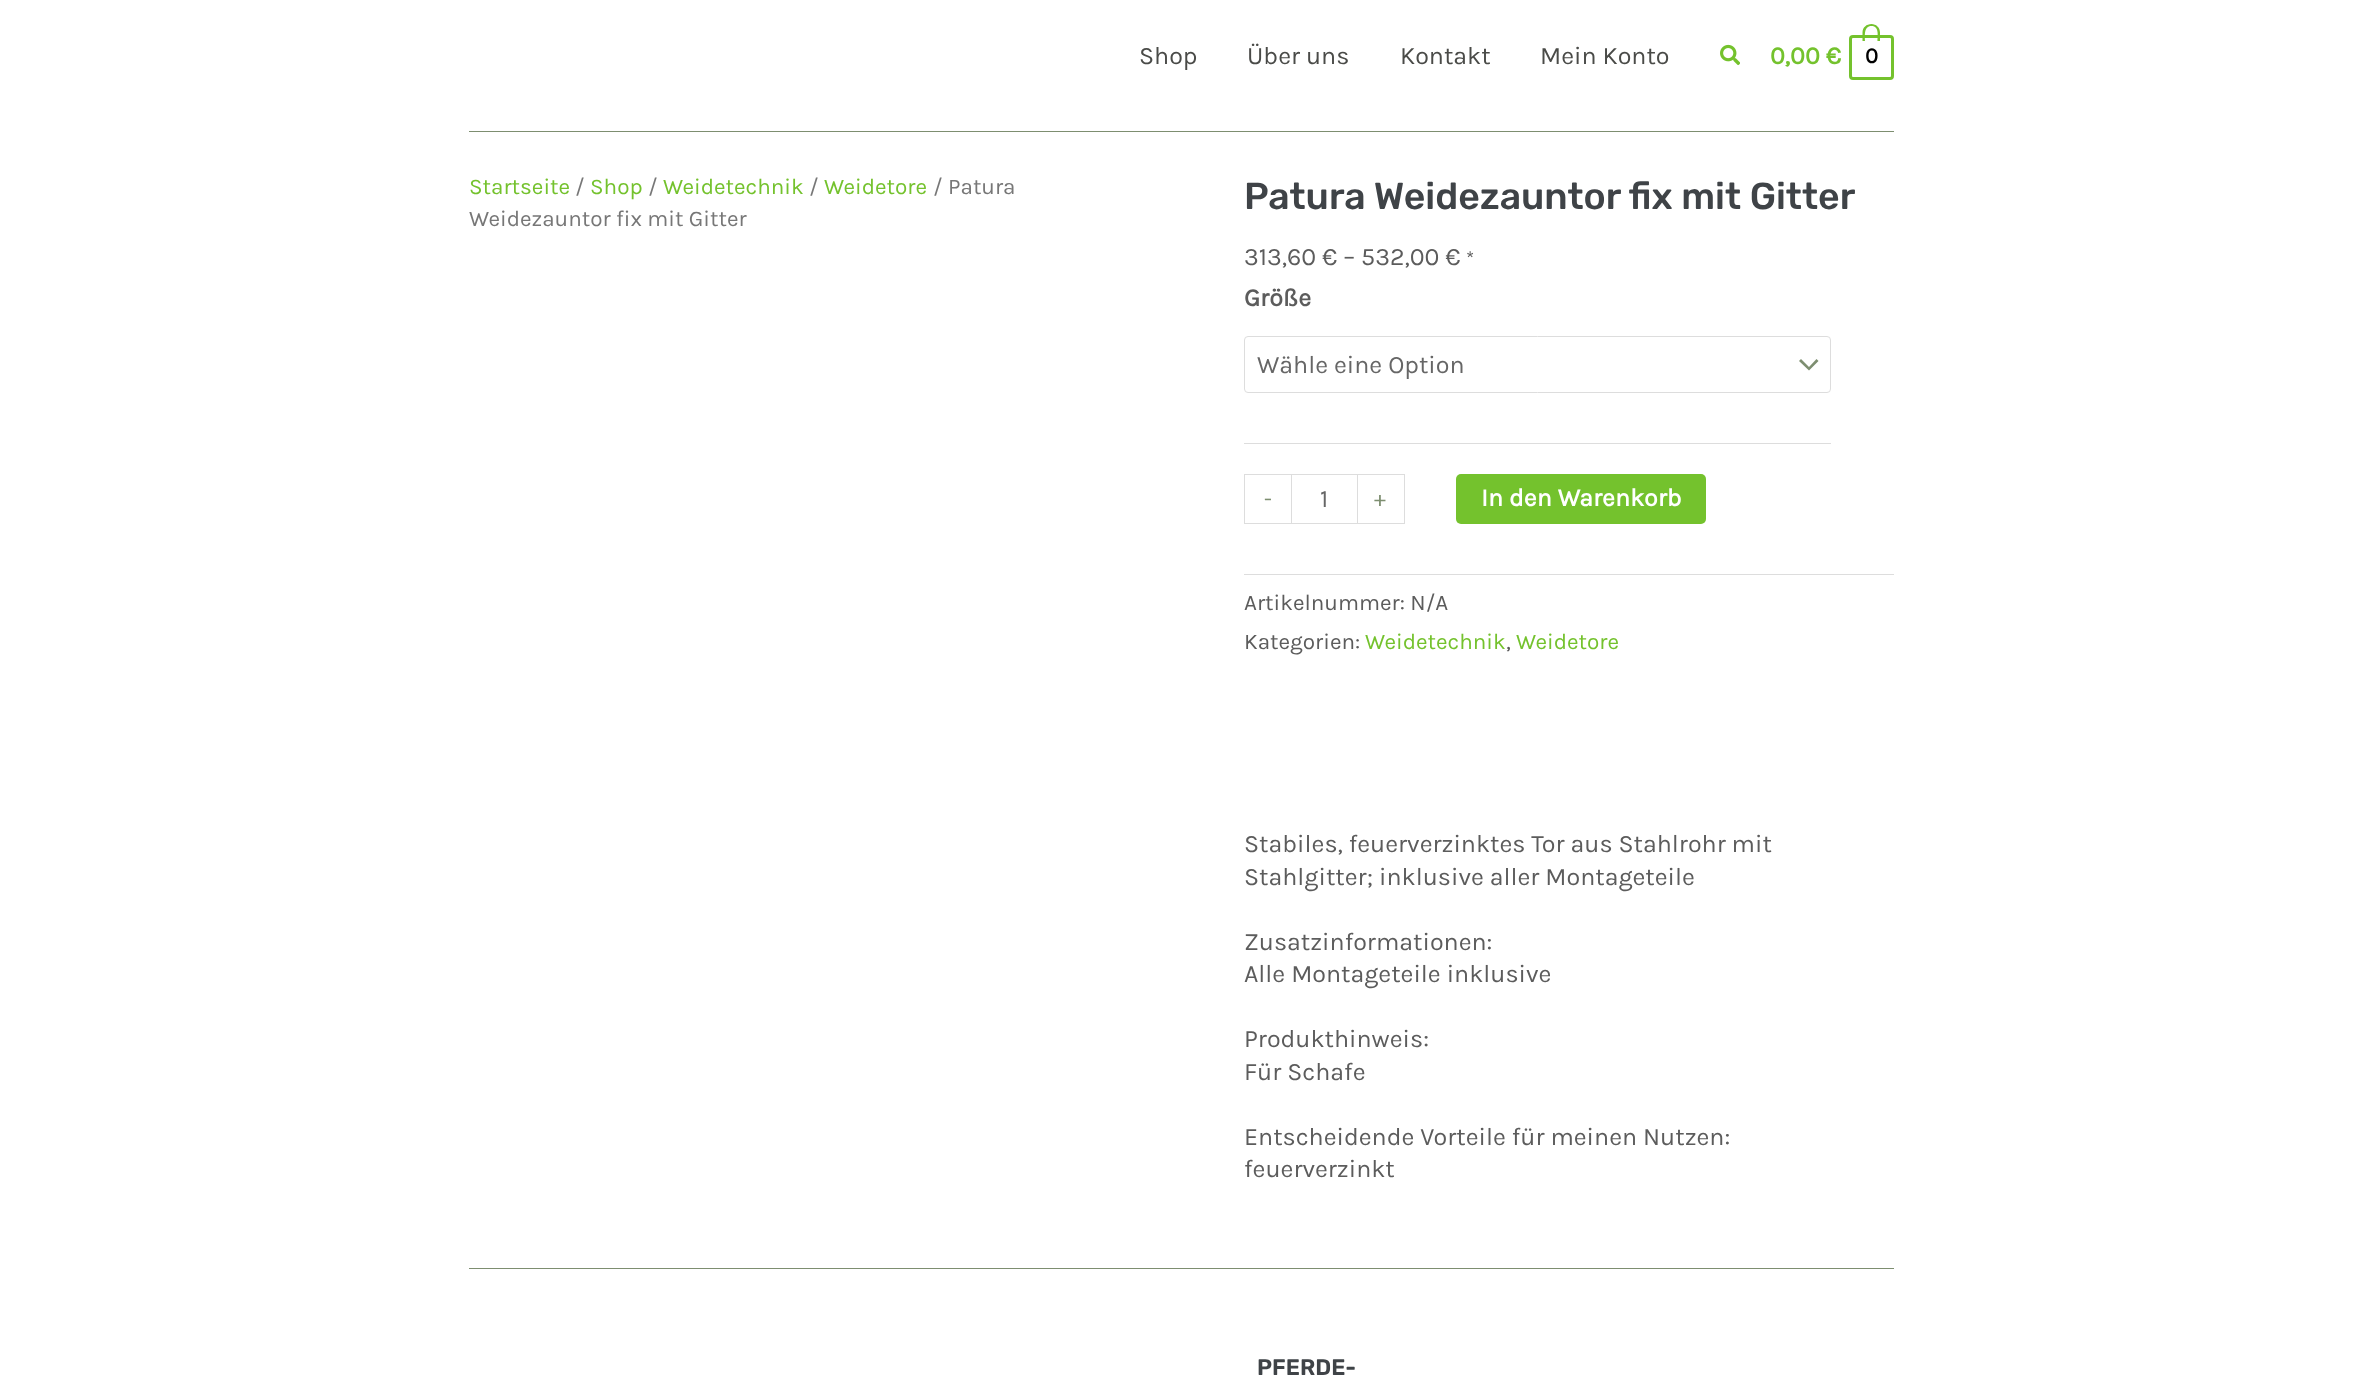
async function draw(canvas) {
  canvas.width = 2362
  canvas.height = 1384
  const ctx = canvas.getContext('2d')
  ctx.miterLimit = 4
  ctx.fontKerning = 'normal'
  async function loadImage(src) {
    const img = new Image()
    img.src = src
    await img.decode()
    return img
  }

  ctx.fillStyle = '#fff'
  ctx.fillRect(0, 0, 2362, 1384)
  ctx.font = '25px Karla'
  ctx.fillStyle = '#4a4b48'
  ctx.fillText('Shop', 1139, 64)
  ctx.fillText('Über uns', 1247, 64)
  ctx.fillText('Kontakt', 1400, 64)
  ctx.fillText('Mein Konto', 1540, 64)
  ctx.drawImage(await loadImage('image0.png'), 1720, 44, 20, 22)
  ctx.font = 'bold 25px Karla'
  ctx.fillStyle = '#74c22d'
  ctx.fillText('0,00 €', 1770, 64)
  ctx.beginPath()
  ctx.roundRect(1850.5, 36.5, 42, 42, 2.5)
  ctx.strokeStyle = '#74c22d'
  ctx.lineWidth = 3
  ctx.stroke()
  ctx.beginPath()
  ctx.moveTo(1871.5, 24)
  ctx.bezierCurveTo(1876, 24, 1880, 27.5, 1880, 32.5)
  ctx.lineTo(1880, 41)
  ctx.lineTo(1862.5, 41)
  ctx.lineTo(1862.5, 32.5)
  ctx.bezierCurveTo(1862.5, 27.5, 1866.5, 24, 1871.5, 24)
  ctx.closePath()
  ctx.moveTo(1871.5, 26)
  ctx.bezierCurveTo(1879.5, 26, 1877.5, 36, 1877.5, 41)
  ctx.lineTo(1865, 41)
  ctx.bezierCurveTo(1865, 36, 1863.5, 26, 1871.5, 26)
  ctx.closePath()
  ctx.fill('evenodd')
  ctx.font = 'bold 22px Karla'
  ctx.fillStyle = '#000'
  ctx.fillText('0', 1865, 63)
  ctx.fillStyle = '#7d8e70'
  ctx.fillRect(469, 131, 1425, 1)
  ctx.font = '22.5px Karla'
  ctx.fillStyle = '#74c22d'
  ctx.fillText('Startseite', 469, 194)
  ctx.fillStyle = '#777'
  ctx.fillText('/', 575, 194)
  ctx.fillStyle = '#74c22d'
  ctx.fillText('Shop', 590, 194)
  ctx.fillStyle = '#777'
  ctx.fillText('/', 648, 194)
  ctx.fillStyle = '#74c22d'
  ctx.fillText('Weidetechnik', 663, 194)
  ctx.fillStyle = '#777'
  ctx.fillText('/', 809, 194)
  ctx.fillStyle = '#74c22d'
  ctx.fillText('Weidetore', 824, 194)
  ctx.fillStyle = '#777'
  ctx.fillText('/ Patura', 933, 194)
  ctx.fillText('Weidezauntor fix mit Gitter', 469, 226)
  ctx.font = '500 37.5px Rubik'
  ctx.fillStyle = '#3f4347'
  ctx.fillText('Patura Weidezauntor fix mit Gitter', 1244, 209)
  ctx.font = '25px Karla'
  ctx.fillStyle = '#5c5c5c'
  ctx.fillText('313,60 € – 532,00 €', 1244, 265)
  ctx.font = '20px Karla'
  ctx.fillText('*', 1466, 265)
  ctx.fillStyle = '#ddd'
  ctx.fillRect(1244, 443, 587, 1)
  ctx.font = 'bold 25px Karla'
  ctx.fillStyle = '#5c5c5c'
  ctx.fillText('Größe', 1244, 306)
  ctx.fillStyle = '#7d8e70'
  ctx.beginPath()
  ctx.moveTo(1799, 361)
  ctx.lineTo(1809, 370.5)
  ctx.lineTo(1818.5, 361)
  ctx.lineTo(1816.5, 359)
  ctx.lineTo(1809, 367)
  ctx.lineTo(1801, 359)
  ctx.closePath()
  ctx.fill()
  ctx.beginPath()
  ctx.roundRect(1244.5, 336.5, 586, 56, 3.5)
  ctx.strokeStyle = '#ddd'
  ctx.lineWidth = 1
  ctx.stroke()
  ctx.font = '25px Karla'
  ctx.fillStyle = '#666'
  ctx.fillText('Wähle eine Option', 1257, 373)
  ctx.fillStyle = '#ddd'
  ctx.fillRect(1244, 474, 47, 1)
  ctx.fillRect(1244, 523, 47, 1)
  ctx.fillRect(1244, 474, 1, 50)
  ctx.font = '22.5px Karla'
  ctx.fillStyle = '#7d8e70'
  ctx.fillText('-', 1264, 506)
  ctx.strokeRect(1291.5, 474.5, 66, 49)
  ctx.font = '25px Karla'
  ctx.fillStyle = '#666'
  ctx.fillText('1', 1320, 507)
  ctx.fillStyle = '#ddd'
  ctx.fillRect(1358, 474, 47, 1)
  ctx.fillRect(1404, 474, 1, 50)
  ctx.fillRect(1358, 523, 47, 1)
  ctx.font = '22.5px Karla'
  ctx.fillStyle = '#7d8e70'
  ctx.fillText('+', 1374, 506)
  ctx.fillStyle = '#74c22d'
  ctx.beginPath()
  ctx.roundRect(1456, 474, 250, 50, 5)
  ctx.fill()
  ctx.font = 'bold 25px Karla'
  ctx.fillStyle = '#fff'
  ctx.fillText('In den Warenkorb', 1481, 506)
  ctx.fillStyle = '#ddd'
  ctx.fillRect(1244, 574, 650, 1)
  ctx.font = '22.5px Karla'
  ctx.fillStyle = '#5c5c5c'
  ctx.fillText('Artikelnummer: N/A', 1244, 610)
  ctx.fillText('Kategorien:', 1244, 649)
  ctx.fillStyle = '#74c22d'
  ctx.fillText('Weidetechnik', 1365, 649)
  ctx.fillStyle = '#5c5c5c'
  ctx.fillText(',', 1506, 649)
  ctx.fillStyle = '#74c22d'
  ctx.fillText('Weidetore', 1516, 649)
  ctx.font = '25px Karla'
  ctx.fillStyle = '#5c5c5c'
  ctx.fillText('Stabiles, feuerverzinktes Tor aus Stahlrohr mit', 1244, 852)
  ctx.fillText('Stahlgitter; inklusive aller Montageteile', 1244, 885)
  ctx.fillText('Zusatzinformationen:', 1244, 950)
  ctx.fillText('Alle Montageteile inklusive', 1244, 982)
  ctx.fillText('Produkthinweis:', 1244, 1047)
  ctx.fillText('Für Schafe', 1244, 1080)
  ctx.fillText('Entscheidende Vorteile für meinen Nutzen:', 1244, 1145)
  ctx.fillText('feuerverzinkt', 1244, 1177)
  ctx.fillStyle = '#7d8e70'
  ctx.fillRect(469, 1268, 1425, 1)
  ctx.font = '600 22.5px Rubik'
  ctx.fillStyle = '#3f4347'
  ctx.fillText('PFERDE-', 1257, 1375)
}

draw(document.querySelector('canvas'))
